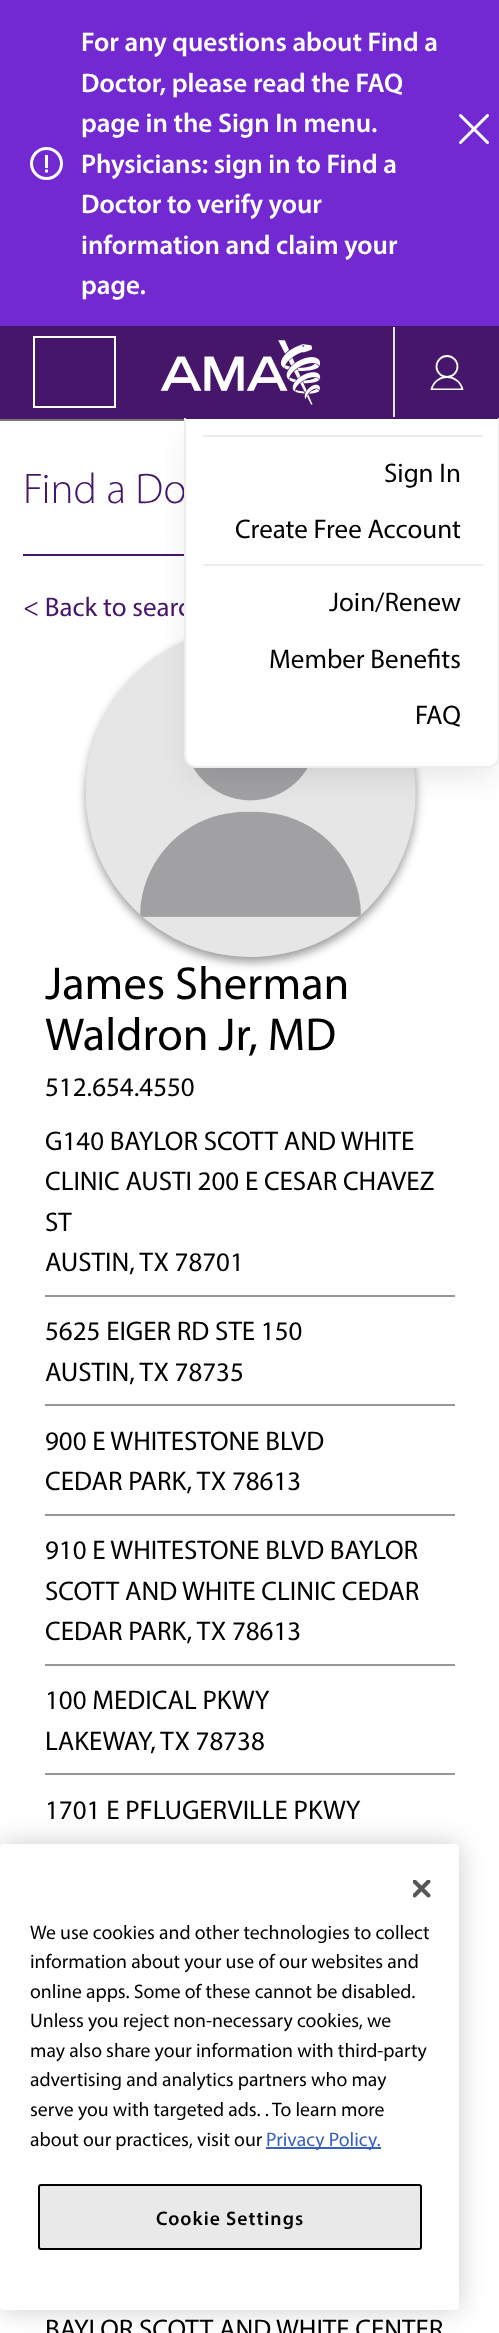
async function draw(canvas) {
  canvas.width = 499
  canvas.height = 2333
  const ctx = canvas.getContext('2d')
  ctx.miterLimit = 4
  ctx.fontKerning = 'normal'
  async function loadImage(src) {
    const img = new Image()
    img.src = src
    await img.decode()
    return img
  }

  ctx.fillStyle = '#fff'
  ctx.fillRect(0, 0, 499, 2333)
  ctx.fillStyle = '#7229d1'
  ctx.fillRect(0, 0, 499, 326)
  ctx.beginPath()
  ctx.arc(46.5, 163.5, 15, 0, 2 * Math.PI)
  ctx.strokeStyle = '#fff'
  ctx.lineWidth = 3
  ctx.stroke()
  ctx.fillStyle = '#fff'
  ctx.fillRect(45, 155, 3, 13)
  ctx.beginPath()
  ctx.moveTo(46.5, 172.5)
  ctx.lineTo(46.5, 169.5)
  ctx.stroke()
  ctx.font = '600 27px Myriad'
  ctx.fillText('For any questions about Find a', 81, 51)
  ctx.fillText('Doctor, please read the FAQ', 81, 92)
  ctx.fillText('page in the Sign In menu.', 81, 132)
  ctx.fillText('Physicians: sign in to Find a', 81, 173)
  ctx.fillText('Doctor to verify your', 81, 213)
  ctx.fillText('information and claim your', 81, 254)
  ctx.fillText('page.', 81, 294)
  ctx.drawImage(await loadImage('image0.png'), 459, 114, 30, 30)
  ctx.fillStyle = '#46166b'
  ctx.fillRect(0, 326, 499, 93)
  ctx.fillStyle = '#767676'
  ctx.fillRect(0, 419, 184, 2)
  ctx.lineWidth = 2
  ctx.strokeRect(34, 337, 81, 70)
  ctx.drawImage(await loadImage('image1.png'), 160, 340, 161, 65)
  ctx.fillStyle = '#e4e3e6'
  ctx.fillRect(393, 327, 2, 90)
  ctx.beginPath()
  ctx.arc(447, 366.5, 10.5, 0, 2 * Math.PI)
  ctx.lineWidth = 1.8
  ctx.stroke()
  ctx.save()
  ctx.beginPath()
  ctx.rect(429, 354, 36, 36)
  ctx.clip()
  ctx.beginPath()
  ctx.moveTo(447, 377)
  ctx.bezierCurveTo(439.5, 377, 433, 382.5, 431.5, 389.5)
  ctx.lineTo(462.5, 389.5)
  ctx.bezierCurveTo(461, 382.5, 454.5, 377, 447, 377)
  ctx.closePath()
  ctx.stroke()
  ctx.restore()
  ctx.fillStyle = '#46166b'
  ctx.fillRect(23, 554, 161, 2)
  ctx.fillStyle = '#00000066'
  ctx.filter = 'blur(5px)'
  ctx.beginPath()
  ctx.roundRect(86, 632, 330, 330, 165)
  ctx.fill()
  ctx.filter = 'none'
  ctx.fillStyle = '#d9d9d9'
  ctx.beginPath()
  ctx.arc(251, 792, 165, 0, 2 * Math.PI)
  ctx.fill()
  ctx.drawImage(await loadImage('image2.png'), 86, 641, 329, 316)
  ctx.fillStyle = '#1718181f'
  ctx.filter = 'blur(15px)'
  ctx.beginPath()
  ctx.roundRect(191, 437, 303, 337, 6)
  ctx.fill()
  ctx.filter = 'none'
  ctx.font = '27px Myriad'
  ctx.fillStyle = '#46166b'
  ctx.fillText('< Back to searc', 23, 616)
  ctx.fillStyle = '#fff'
  ctx.beginPath()
  ctx.moveTo(185, 419)
  ctx.lineTo(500, 419)
  ctx.lineTo(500, 756)
  ctx.bezierCurveTo(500, 762.5, 494.5, 768, 488, 768)
  ctx.lineTo(197, 768)
  ctx.bezierCurveTo(190.5, 768, 185, 762.5, 185, 756)
  ctx.closePath()
  ctx.fill()
  ctx.font = '300 43px Myriad'
  ctx.fillStyle = '#46166b'
  ctx.fillText('Find a Do', 23, 503)
  ctx.fillStyle = '#ededed'
  ctx.beginPath()
  ctx.moveTo(184, 418)
  ctx.lineTo(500, 418)
  ctx.lineTo(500, 756)
  ctx.bezierCurveTo(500, 763, 494, 768, 488, 768)
  ctx.lineTo(196, 768)
  ctx.bezierCurveTo(190, 768, 184, 763, 184, 756)
  ctx.closePath()
  ctx.moveTo(186, 418)
  ctx.lineTo(498, 418)
  ctx.lineTo(498, 756)
  ctx.bezierCurveTo(498, 762, 493, 766, 488, 766)
  ctx.lineTo(196, 766)
  ctx.bezierCurveTo(191, 766, 186, 762, 186, 756)
  ctx.closePath()
  ctx.fill('evenodd')
  ctx.fillRect(203, 435, 280, 2)
  ctx.fillRect(203, 564, 280, 2)
  ctx.font = '27px Myriad'
  ctx.fillStyle = '#000'
  ctx.fillText('Sign In', 384, 482)
  ctx.fillText('Create Free Account', 235, 538)
  ctx.fillText('Join/Renew', 329, 611)
  ctx.fillText('Member Benefits', 269, 668)
  ctx.fillText('FAQ', 415, 724)
  ctx.font = '46.5px Myriad'
  ctx.fillText('James Sherman', 45, 999)
  ctx.fillText('Waldron Jr, MD', 45, 1050)
  ctx.font = '27px Myriad'
  ctx.fillText('512.654.4550', 45, 1096)
  ctx.fillStyle = '#979797'
  ctx.fillRect(45, 1295, 410, 2)
  ctx.fillStyle = '#000'
  ctx.fillText('G140 BAYLOR SCOTT AND WHITE', 45, 1150)
  ctx.fillText('CLINIC AUSTI 200 E CESAR CHAVEZ', 45, 1190)
  ctx.fillText('ST', 45, 1231)
  ctx.fillText('AUSTIN, TX 78701', 45, 1271)
  ctx.fillStyle = '#979797'
  ctx.fillRect(45, 1404, 410, 2)
  ctx.fillStyle = '#000'
  ctx.fillText('5625 EIGER RD STE 150', 45, 1340)
  ctx.fillText('AUSTIN, TX 78735', 45, 1381)
  ctx.fillStyle = '#979797'
  ctx.fillRect(45, 1514, 410, 2)
  ctx.fillStyle = '#000'
  ctx.fillText('900 E WHITESTONE BLVD', 45, 1450)
  ctx.fillText('CEDAR PARK, TX 78613', 45, 1490)
  ctx.fillStyle = '#979797'
  ctx.fillRect(45, 1664, 410, 2)
  ctx.fillStyle = '#000'
  ctx.fillText('910 E WHITESTONE BLVD BAYLOR', 45, 1559)
  ctx.fillText('SCOTT AND WHITE CLINIC CEDAR', 45, 1600)
  ctx.fillText('CEDAR PARK, TX 78613', 45, 1640)
  ctx.fillStyle = '#979797'
  ctx.fillRect(45, 1773, 410, 2)
  ctx.fillStyle = '#000'
  ctx.fillText('100 MEDICAL PKWY', 45, 1709)
  ctx.fillText('LAKEWAY, TX 78738', 45, 1750)
  ctx.fillText('1701 E PFLUGERVILLE PKWY', 45, 1819)
  ctx.fillText('BAYLOR SCOTT AND WHITE CENTER', 45, 2338)
  ctx.fillStyle = '#00000033'
  ctx.filter = 'blur(13.5px)'
  ctx.beginPath()
  ctx.roundRect(0, 1844, 459, 466, 4)
  ctx.fill()
  ctx.filter = 'none'
  ctx.fillStyle = '#fff'
  ctx.beginPath()
  ctx.roundRect(0, 1844, 459, 466, 4)
  ctx.fill()
  ctx.drawImage(await loadImage('image3.png'), 413, 1880, 18, 18)
  ctx.font = '19.7px Myriad'
  ctx.fillStyle = '#000'
  ctx.fillText('We use cookies and other technologies to collect', 30, 1939)
  ctx.fillText('information about your use of our websites and', 30, 1968)
  ctx.fillText('online apps. Some of these cannot be disabled.', 30, 1998)
  ctx.fillText('Unless you reject non-necessary cookies, we', 30, 2027)
  ctx.fillText('may also share your information with third-party', 30, 2057)
  ctx.fillText('advertising and analytics partners who may', 30, 2086)
  ctx.fillText('serve you with targeted ads. . To learn more', 30, 2116)
  ctx.fillText('about our practices, visit our', 30, 2146)
  ctx.fillStyle = '#3860be'
  ctx.fillRect(266, 2147, 115, 2)
  ctx.fillText('Privacy Policy.', 266, 2146)
  ctx.fillStyle = '#e9e9e9'
  ctx.beginPath()
  ctx.roundRect(39, 2185, 382, 64, 2)
  ctx.fill()
  ctx.strokeStyle = '#000'
  ctx.lineWidth = 2
  ctx.stroke()
  ctx.letterSpacing = '1px'
  ctx.font = '600 19.7px Myriad'
  ctx.fillStyle = '#000'
  ctx.fillText('Cookie Settings', 156, 2225)
}

draw(document.querySelector('canvas'))
